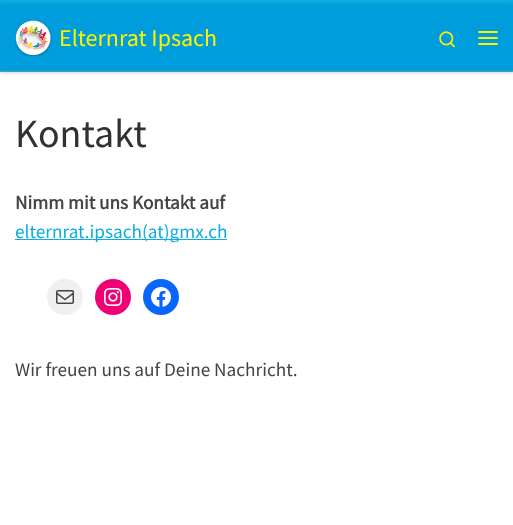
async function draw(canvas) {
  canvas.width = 513
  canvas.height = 525
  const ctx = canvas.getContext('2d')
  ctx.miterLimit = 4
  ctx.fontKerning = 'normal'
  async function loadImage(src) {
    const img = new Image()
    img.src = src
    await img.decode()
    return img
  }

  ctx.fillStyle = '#fff'
  ctx.fillRect(0, 0, 513, 525)
  ctx.fillStyle = '#66666614'
  ctx.filter = 'blur(1px)'
  ctx.beginPath()
  ctx.rect(0, 2, 513, 72)
  ctx.fill()
  ctx.filter = 'none'
  ctx.fillStyle = '#009ddc'
  ctx.fillRect(0, 5, 513, 65)
  ctx.fillStyle = '#0aade4'
  ctx.fillRect(0, 0, 513, 5)
  ctx.fillStyle = '#3ab3d0'
  ctx.fillRect(0, 71, 513, 1)
  ctx.save()
  ctx.beginPath()
  ctx.moveTo(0, 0)
  ctx.lineTo(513, 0)
  ctx.lineTo(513, 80)
  ctx.lineTo(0, 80)
  ctx.closePath()
  ctx.moveTo(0, 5)
  ctx.lineTo(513, 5)
  ctx.lineTo(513, 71)
  ctx.lineTo(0, 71)
  ctx.closePath()
  ctx.clip('evenodd')
  ctx.fillStyle = '#00000033'
  ctx.filter = 'blur(2.5px)'
  ctx.beginPath()
  ctx.rect(0, 5, 513, 66)
  ctx.fill()
  ctx.filter = 'none'
  ctx.restore()
  ctx.drawImage(await loadImage('image0.png'), 15, 20, 37, 36)
  ctx.font = '24px Source Sans Pro'
  ctx.fillStyle = '#fff200'
  ctx.fillText('Elternrat Ipsach', 59, 46)
  ctx.drawImage(await loadImage('image1.png'), 439, 31, 16, 17)
  ctx.beginPath()
  ctx.roundRect(478, 31, 20, 2, 1)
  ctx.fill()
  ctx.beginPath()
  ctx.roundRect(478, 37, 20, 2, 1)
  ctx.fill()
  ctx.beginPath()
  ctx.roundRect(478, 43, 20, 2, 1)
  ctx.fill()
  ctx.fillStyle = '#13a3cc'
  ctx.fillRect(0, 70, 513, 1)
  ctx.font = '40px Source Sans Pro'
  ctx.fillStyle = '#303133'
  ctx.fillText('Kontakt', 15, 147)
  ctx.font = 'bold 19.25px Source Sans Pro'
  ctx.fillStyle = '#444'
  ctx.fillText('Nimm mit uns Kontakt auf', 15, 209)
  ctx.fillStyle = '#0aade4'
  ctx.fillRect(15, 239, 212, 1)
  ctx.font = '19.25px Source Sans Pro'
  ctx.fillText('elternrat.ipsach(at)gmx.ch', 15, 238)
  ctx.fillStyle = '#f0f0f0'
  ctx.beginPath()
  ctx.arc(65, 297, 18, 0, 2 * Math.PI)
  ctx.fill()
  ctx.drawImage(await loadImage('image2.png'), 56, 290, 18, 14)
  ctx.fillStyle = '#f00075'
  ctx.beginPath()
  ctx.arc(113, 297, 18, 0, 2 * Math.PI)
  ctx.fill()
  ctx.drawImage(await loadImage('image3.png'), 104, 288, 18, 18)
  ctx.fillStyle = '#0866ff'
  ctx.beginPath()
  ctx.arc(161, 297, 18, 0, 2 * Math.PI)
  ctx.fill()
  ctx.drawImage(await loadImage('image4.png'), 151, 287, 20, 20)
  ctx.fillStyle = '#444'
  ctx.fillText('Wir freuen uns auf Deine Nachricht.', 15, 376)
}

draw(document.querySelector('canvas'))
